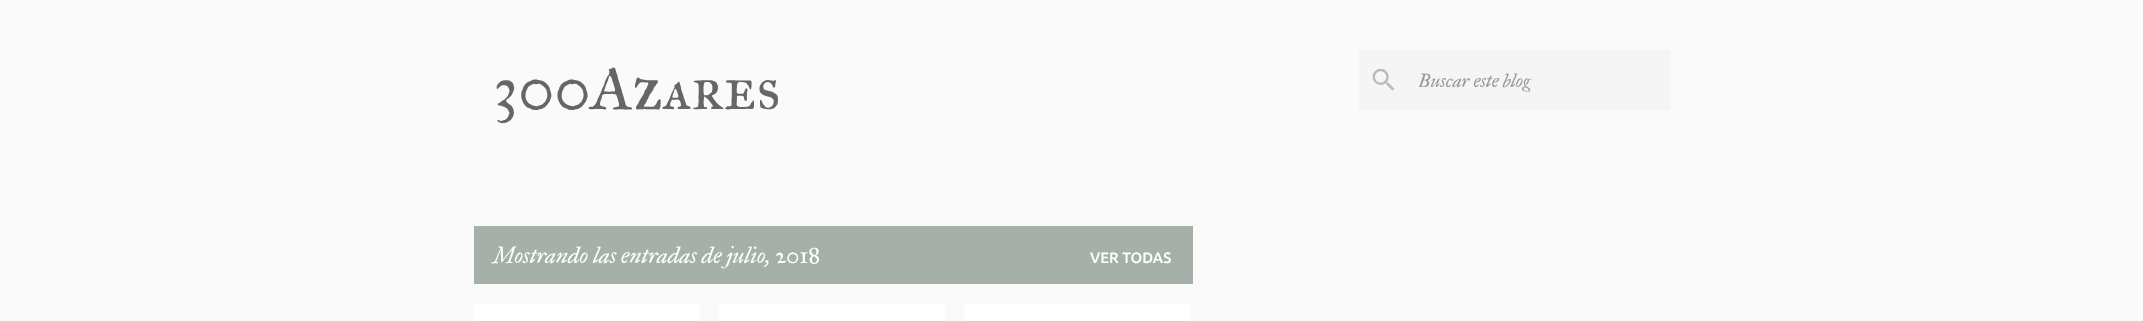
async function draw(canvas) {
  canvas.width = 2143
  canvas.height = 321
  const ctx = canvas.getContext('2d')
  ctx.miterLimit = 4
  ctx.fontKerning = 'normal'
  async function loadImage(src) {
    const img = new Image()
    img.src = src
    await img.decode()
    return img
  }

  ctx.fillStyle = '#fafafa'
  ctx.fillRect(0, 0, 2143, 321)
  ctx.font = '62.5px IM FELL Great Primer SC'
  ctx.fillStyle = '#666'
  ctx.fillText('300Azares', 493, 109)
  ctx.fillStyle = '#f5f5f5'
  ctx.fillRect(1359, 50, 312, 60)
  ctx.drawImage(await loadImage('image0.png'), 1372, 68, 23, 23)
  ctx.save()
  ctx.beginPath()
  ctx.rect(1419, 70, 242, 23)
  ctx.clip()
  ctx.font = 'italic 18.75px IM FELL Great Primer'
  ctx.fillStyle = '#989898'
  ctx.fillText('Buscar este blog', 1418, 87)
  ctx.restore()
  ctx.fillStyle = '#a6b0a8'
  ctx.fillRect(474, 226, 719, 58)
  ctx.font = 'italic 22.5px IM FELL Great Primer'
  ctx.fillStyle = '#fff'
  ctx.fillText('Mostrando las entradas de julio, 2018', 493, 263)
  ctx.font = '500 15px Ubuntu'
  ctx.fillText('VER TODAS', 1090, 263)
  ctx.fillRect(474, 304, 226, 17)
  ctx.fillRect(719, 304, 226, 17)
  ctx.fillRect(964, 304, 226, 17)
}

draw(document.querySelector('canvas'))
